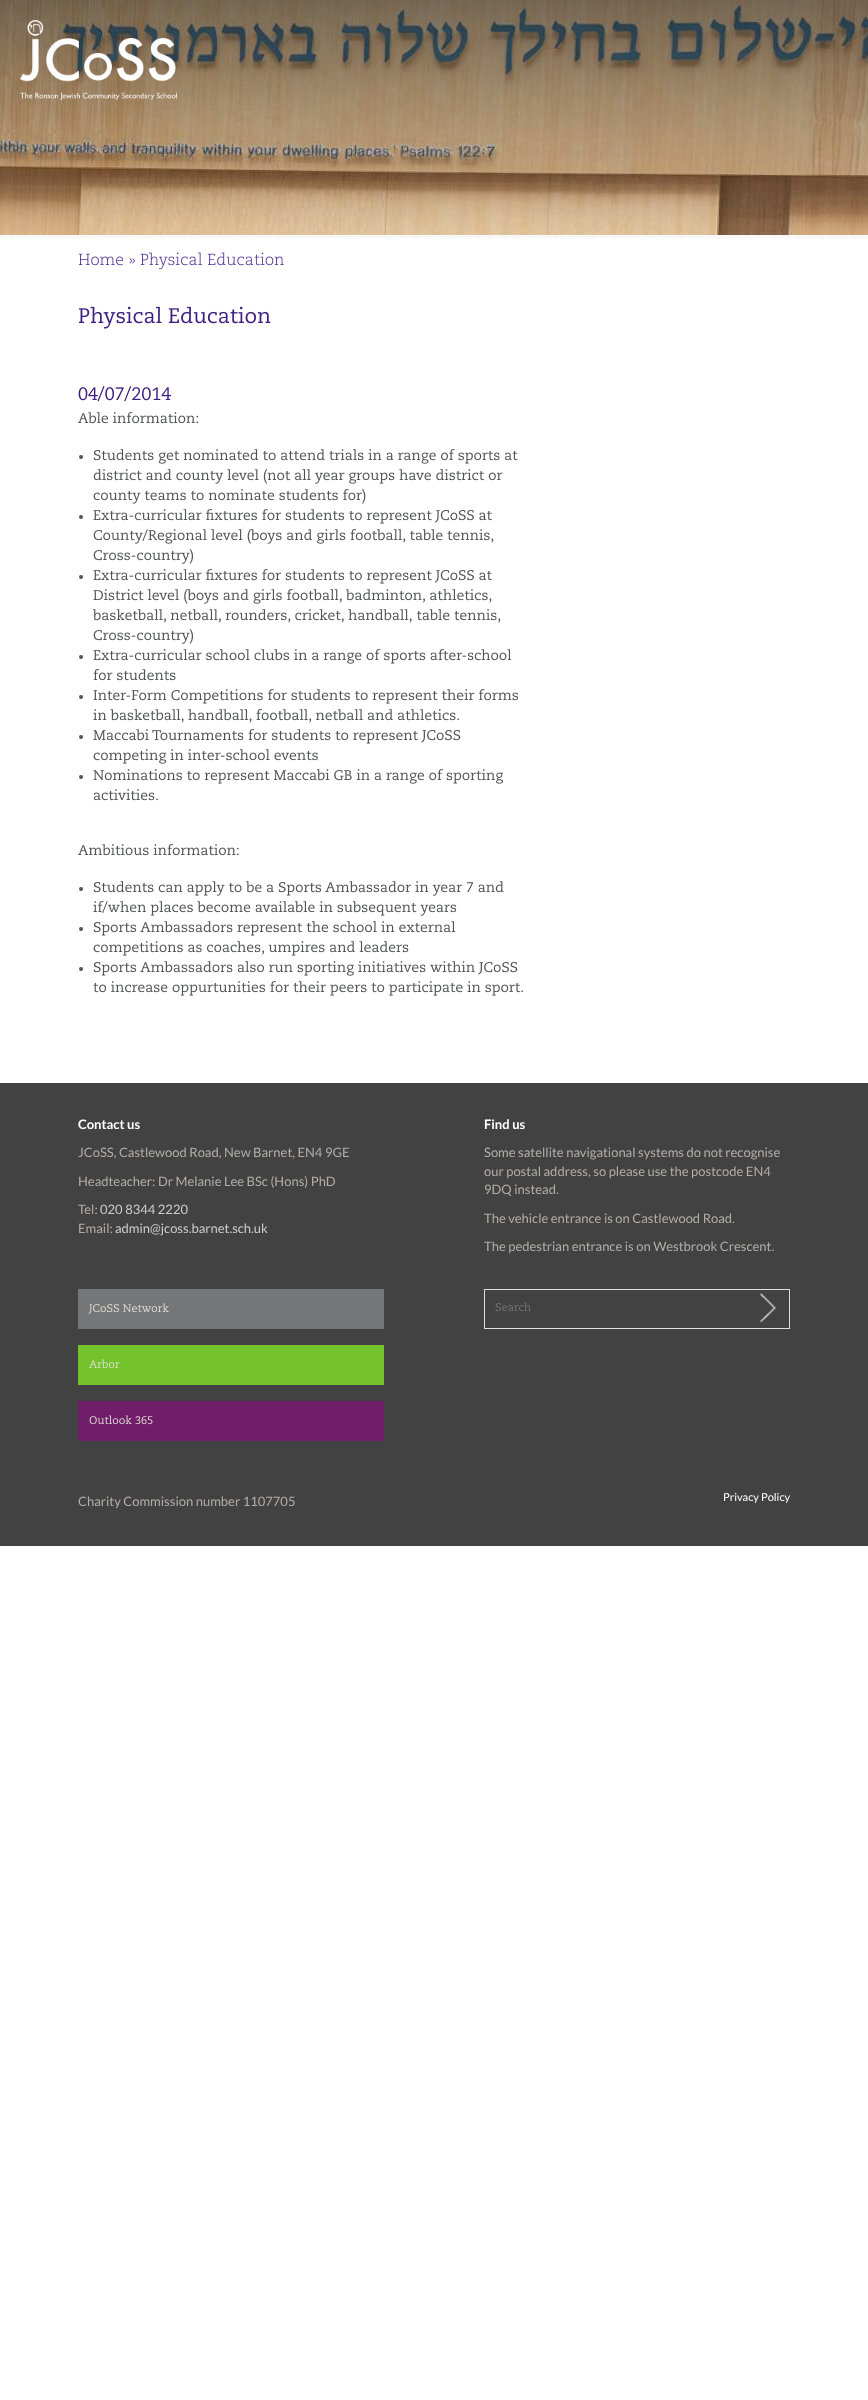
async function draw(canvas) {
  canvas.width = 868
  canvas.height = 2400
  const ctx = canvas.getContext('2d')
  ctx.miterLimit = 4
  ctx.fontKerning = 'normal'
  async function loadImage(src) {
    const img = new Image()
    img.src = src
    await img.decode()
    return img
  }
  let gradient

  ctx.fillStyle = '#fff'
  ctx.fillRect(0, 0, 868, 2400)
  ctx.drawImage(await loadImage('image0.png'), 0, 0, 868, 235)
  gradient = ctx.createLinearGradient(434, 0, 434, 250)
  gradient.addColorStop(0, '#00000080')
  gradient.addColorStop(1, '#00000000')
  ctx.fillStyle = gradient
  ctx.fillRect(0, 0, 868, 239)
  ctx.drawImage(await loadImage('image1.png'), 78, 253, 46, 13)
  ctx.drawImage(await loadImage('image2.png'), 129, 258, 6, 6)
  ctx.drawImage(await loadImage('image3.png'), 140, 252, 144, 18)
  ctx.drawImage(await loadImage('image4.png'), 78, 306, 193, 23)
  ctx.drawImage(await loadImage('image5.png'), 78, 386, 94, 16)
  ctx.drawImage(await loadImage('image6.png'), 78, 412, 121, 12)
  ctx.fillStyle = '#505154'
  ctx.beginPath()
  ctx.arc(81, 457, 2, 0, 2 * Math.PI)
  ctx.fill()
  ctx.drawImage(await loadImage('image7.png'), 93, 449, 425, 15)
  ctx.drawImage(await loadImage('image8.png'), 93, 469, 410, 15)
  ctx.drawImage(await loadImage('image9.png'), 93, 489, 273, 15)
  ctx.beginPath()
  ctx.arc(81, 517, 2, 0, 2 * Math.PI)
  ctx.fill()
  ctx.drawImage(await loadImage('image10.png'), 93, 509, 399, 15)
  ctx.drawImage(await loadImage('image11.png'), 93, 529, 401, 15)
  ctx.drawImage(await loadImage('image12.png'), 93, 549, 100, 15)
  ctx.beginPath()
  ctx.arc(81, 577, 2, 0, 2 * Math.PI)
  ctx.fill()
  ctx.drawImage(await loadImage('image10.png'), 93, 569, 399, 15)
  ctx.drawImage(await loadImage('image13.png'), 93, 589, 399, 15)
  ctx.drawImage(await loadImage('image14.png'), 93, 609, 408, 14)
  ctx.drawImage(await loadImage('image12.png'), 93, 629, 100, 15)
  ctx.beginPath()
  ctx.arc(81, 657, 2, 0, 2 * Math.PI)
  ctx.fill()
  ctx.drawImage(await loadImage('image15.png'), 93, 649, 419, 15)
  ctx.drawImage(await loadImage('image16.png'), 93, 669, 83, 12)
  ctx.beginPath()
  ctx.arc(81, 697, 2, 0, 2 * Math.PI)
  ctx.fill()
  ctx.drawImage(await loadImage('image17.png'), 93, 689, 425, 15)
  ctx.drawImage(await loadImage('image18.png'), 93, 709, 366, 14)
  ctx.beginPath()
  ctx.arc(81, 737, 2, 0, 2 * Math.PI)
  ctx.fill()
  ctx.drawImage(await loadImage('image19.png'), 93, 729, 368, 15)
  ctx.drawImage(await loadImage('image20.png'), 93, 749, 225, 15)
  ctx.beginPath()
  ctx.arc(81, 777, 2, 0, 2 * Math.PI)
  ctx.fill()
  ctx.drawImage(await loadImage('image21.png'), 93, 769, 411, 15)
  ctx.drawImage(await loadImage('image22.png'), 93, 789, 65, 12)
  ctx.drawImage(await loadImage('image23.png'), 78, 844, 161, 12)
  ctx.beginPath()
  ctx.arc(81, 889, 2, 0, 2 * Math.PI)
  ctx.fill()
  ctx.drawImage(await loadImage('image24.png'), 93, 881, 411, 15)
  ctx.drawImage(await loadImage('image25.png'), 93, 901, 364, 15)
  ctx.beginPath()
  ctx.arc(81, 929, 2, 0, 2 * Math.PI)
  ctx.fill()
  ctx.drawImage(await loadImage('image26.png'), 93, 921, 363, 15)
  ctx.drawImage(await loadImage('image27.png'), 93, 941, 316, 15)
  ctx.beginPath()
  ctx.arc(81, 969, 2, 0, 2 * Math.PI)
  ctx.fill()
  ctx.drawImage(await loadImage('image28.png'), 93, 961, 425, 15)
  ctx.drawImage(await loadImage('image29.png'), 93, 981, 430, 15)
  ctx.drawImage(await loadImage('image30.png'), 20, 20, 157, 80)
  ctx.fillStyle = '#424242'
  ctx.fillRect(0, 1083, 868, 463)
  ctx.font = 'bold 13px Lato'
  ctx.fillStyle = '#fff'
  ctx.fillText('Contact us', 78, 1129)
  ctx.font = '13px Lato'
  ctx.fillStyle = '#b1aea6'
  ctx.fillText('JCoSS, Castlewood Road, New Barnet, EN4 9GE', 78, 1157)
  ctx.fillText('Headteacher: Dr Melanie Lee BSc (Hons) PhD', 78, 1186)
  ctx.fillText('Tel:', 78, 1214)
  ctx.fillStyle = '#ccc'
  ctx.fillText('020 8344 2220', 100, 1214)
  ctx.fillStyle = '#b1aea6'
  ctx.fillText('Email:', 78, 1233)
  ctx.fillStyle = '#ccc'
  ctx.fillText('admin@jcoss.barnet.sch.uk', 115, 1233)
  ctx.font = 'bold 13px Lato'
  ctx.fillStyle = '#fff'
  ctx.fillText('Find us', 484, 1129)
  ctx.font = '13px Lato'
  ctx.fillStyle = '#b1aea6'
  ctx.fillText('Some satellite navigational systems do not recognise', 484, 1157)
  ctx.fillText('our postal address, so please use the postcode EN4', 484, 1176)
  ctx.fillText('9DQ instead.', 484, 1194)
  ctx.fillText('The vehicle entrance is on Castlewood Road.', 484, 1223)
  ctx.fillText('The pedestrian entrance is on Westbrook Crescent.', 484, 1251)
  ctx.fillStyle = '#757678'
  ctx.fillRect(78, 1289, 306, 40)
  ctx.drawImage(await loadImage('image31.png'), 88, 1303, 81, 11)
  ctx.fillStyle = '#74c32c'
  ctx.fillRect(78, 1345, 306, 40)
  ctx.drawImage(await loadImage('image32.png'), 89, 1359, 31, 10)
  ctx.fillStyle = '#701d6a'
  ctx.fillRect(78, 1401, 306, 40)
  ctx.drawImage(await loadImage('image33.png'), 89, 1415, 64, 10)
  ctx.strokeStyle = '#e1e0d6'
  ctx.strokeRect(484.5, 1289.5, 305, 39)
  ctx.drawImage(await loadImage('image34.png'), 495, 1302, 36, 10)
  ctx.drawImage(await loadImage('image35.png'), 760, 1293, 16, 30)
  ctx.fillStyle = '#b1aea6'
  ctx.fillText('Charity Commission number 1107705', 78, 1506)
  ctx.font = '11px Lato'
  ctx.fillStyle = '#fff'
  ctx.fillText('Privacy Policy', 723, 1501)
}

draw(document.querySelector('canvas'))
